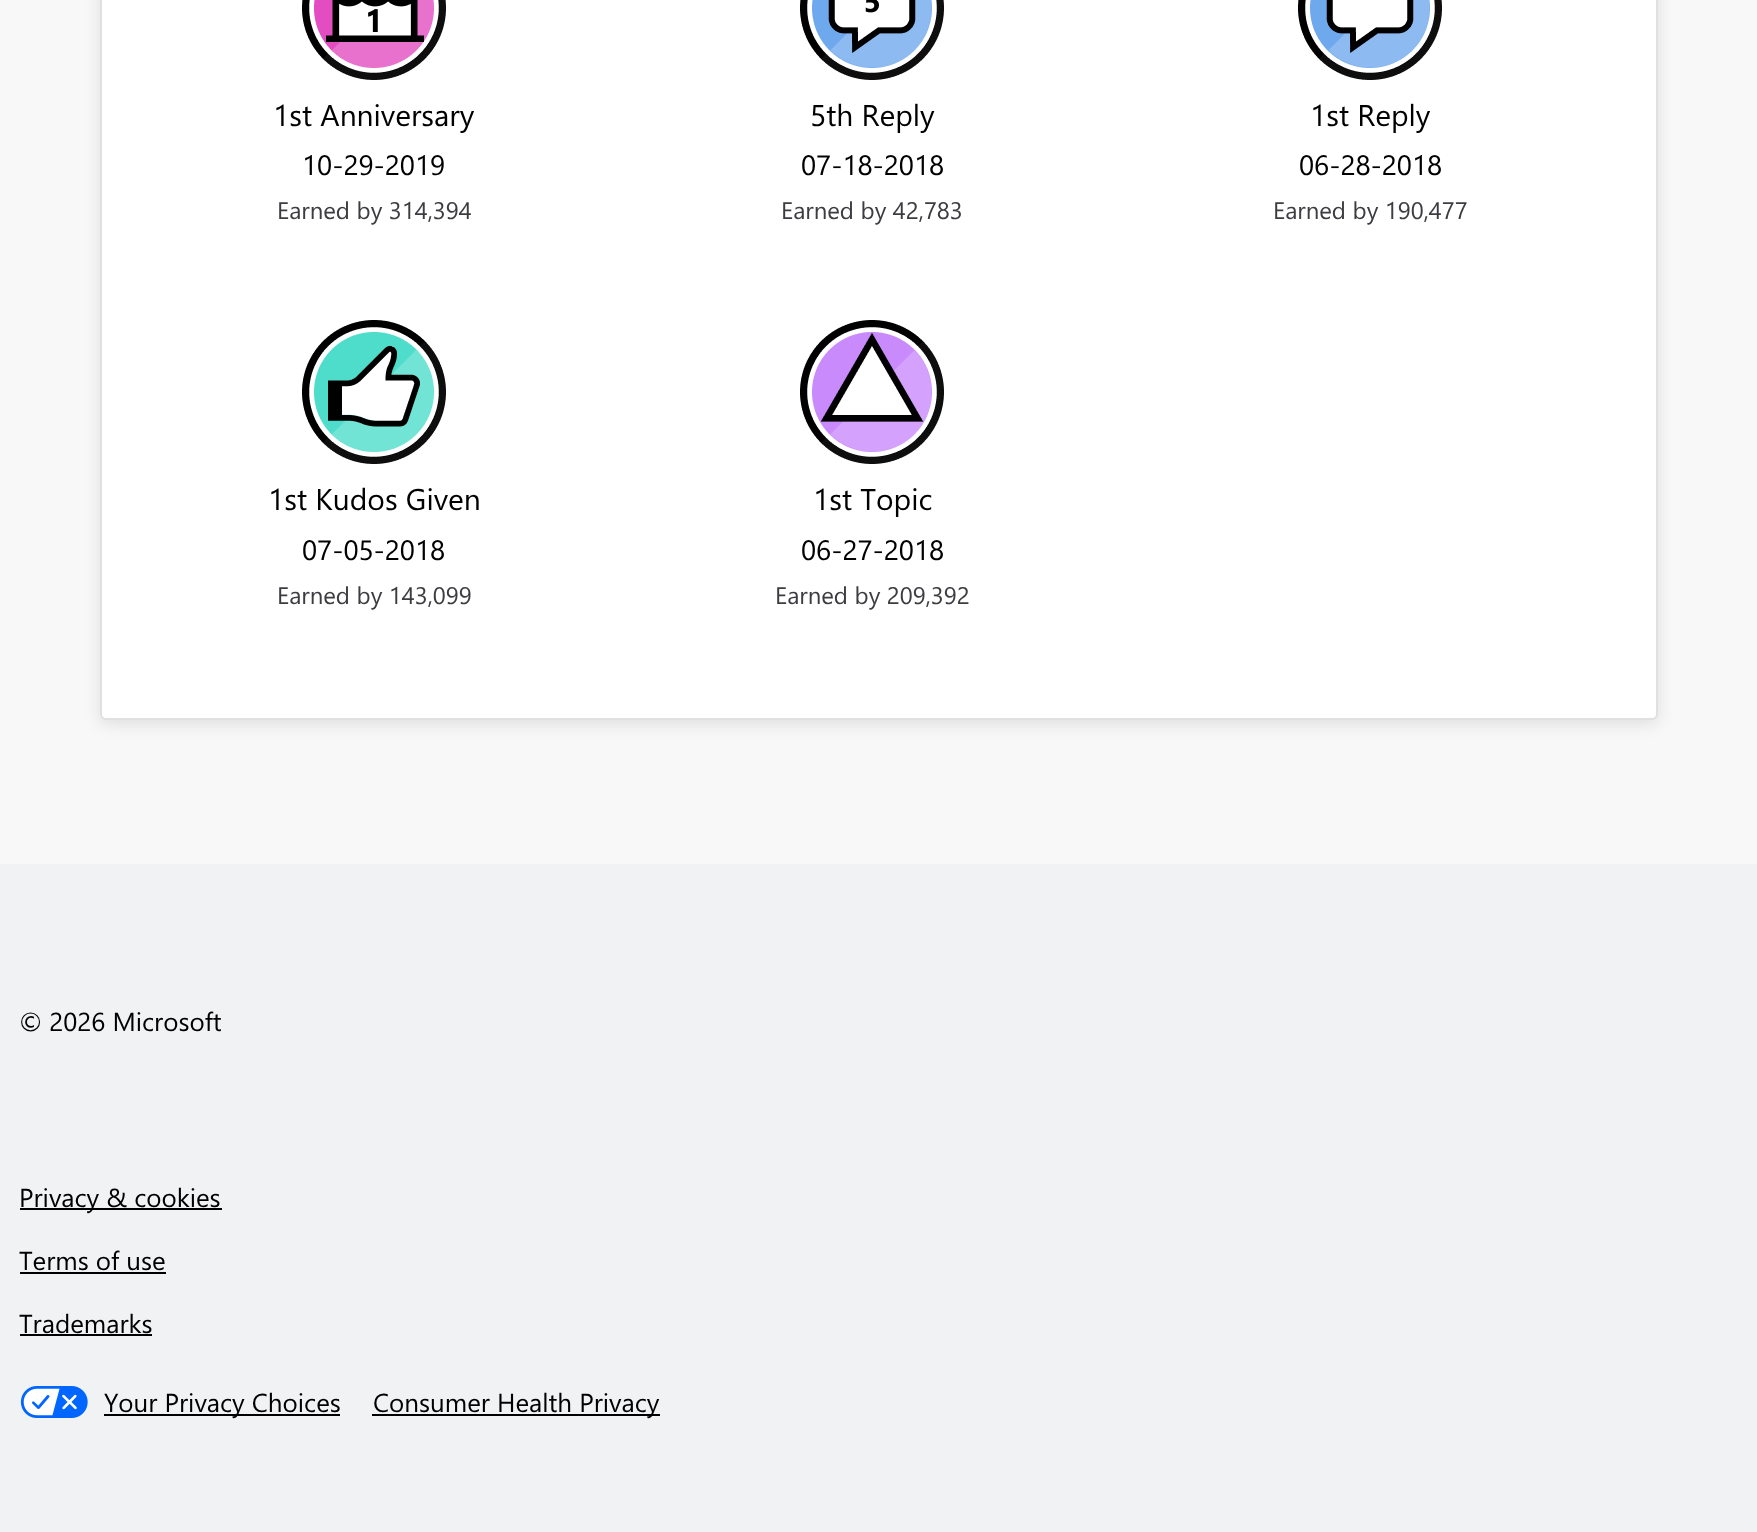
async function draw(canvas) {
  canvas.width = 1757
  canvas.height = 1532
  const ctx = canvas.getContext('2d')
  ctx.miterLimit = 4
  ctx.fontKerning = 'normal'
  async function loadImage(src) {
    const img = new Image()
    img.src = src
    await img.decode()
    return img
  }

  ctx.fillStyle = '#f8f8f8'
  ctx.fillRect(0, 0, 1757, 1532)
  ctx.fillStyle = '#0000001a'
  ctx.filter = 'blur(8px)'
  ctx.beginPath()
  ctx.roundRect(100, -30, 1558, 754, 6)
  ctx.fill()
  ctx.filter = 'none'
  ctx.fillStyle = '#fff'
  ctx.beginPath()
  ctx.roundRect(101, -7, 1556, 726, 5)
  ctx.fill()
  ctx.strokeStyle = '#e0e0e0'
  ctx.lineWidth = 2
  ctx.stroke()
  ctx.drawImage(await loadImage('image0.png'), 302, 0, 144, 80)
  ctx.font = '30px Segoe UI'
  ctx.fillStyle = '#000'
  ctx.fillText('1st Anniversary', 273, 126)
  ctx.font = '28px Segoe UI'
  ctx.fillText('10-29-2019', 302, 175)
  ctx.font = '24px Segoe UI'
  ctx.fillStyle = '#3c3c41'
  ctx.fillText('Earned by 314,394', 277, 219)
  ctx.drawImage(await loadImage('image1.png'), 800, 0, 144, 80)
  ctx.font = '30px Segoe UI'
  ctx.fillStyle = '#000'
  ctx.fillText('5th Reply', 810, 126)
  ctx.font = '28px Segoe UI'
  ctx.fillText('07-18-2018', 801, 175)
  ctx.font = '24px Segoe UI'
  ctx.fillStyle = '#3c3c41'
  ctx.fillText('Earned by 42,783', 781, 219)
  ctx.drawImage(await loadImage('image2.png'), 1298, 0, 144, 80)
  ctx.font = '30px Segoe UI'
  ctx.fillStyle = '#000'
  ctx.fillText('1st Reply', 1310, 126)
  ctx.font = '28px Segoe UI'
  ctx.fillText('06-28-2018', 1299, 175)
  ctx.font = '24px Segoe UI'
  ctx.fillStyle = '#3c3c41'
  ctx.fillText('Earned by 190,477', 1273, 219)
  ctx.drawImage(await loadImage('image3.png'), 302, 320, 144, 144)
  ctx.font = '30px Segoe UI'
  ctx.fillStyle = '#000'
  ctx.fillText('1st Kudos Given', 268, 510)
  ctx.font = '28px Segoe UI'
  ctx.fillText('07-05-2018', 302, 560)
  ctx.font = '24px Segoe UI'
  ctx.fillStyle = '#3c3c41'
  ctx.fillText('Earned by 143,099', 277, 604)
  ctx.drawImage(await loadImage('image4.png'), 800, 320, 144, 144)
  ctx.font = '30px Segoe UI'
  ctx.fillStyle = '#000'
  ctx.fillText('1st Topic', 813, 510)
  ctx.font = '28px Segoe UI'
  ctx.fillText('06-27-2018', 801, 560)
  ctx.font = '24px Segoe UI'
  ctx.fillStyle = '#3c3c41'
  ctx.fillText('Earned by 209,392', 775, 604)
  ctx.fillStyle = '#f1f2f4'
  ctx.fillRect(0, 864, 1757, 668)
  ctx.font = '26px Segoe UI'
  ctx.fillStyle = '#000'
  ctx.fillText('© 2026 Microsoft', 19, 1031)
  ctx.fillRect(20, 1208, 202, 2)
  ctx.fillText('Privacy & cookies', 19, 1207)
  ctx.fillText('Terms of use', 19, 1270)
  ctx.fillRect(20, 1272, 146, 2)
  ctx.fillText('Trademarks', 19, 1333)
  ctx.fillRect(20, 1334, 132, 2)
  ctx.drawImage(await loadImage('image5.png'), 20, 1386, 68, 32)
  ctx.fillRect(104, 1414, 236, 2)
  ctx.fillText('Your Privacy Choices', 104, 1412)
  ctx.fillRect(372, 1414, 288, 2)
  ctx.fillText('Consumer Health Privacy', 373, 1412)
}

draw(document.querySelector('canvas'))
